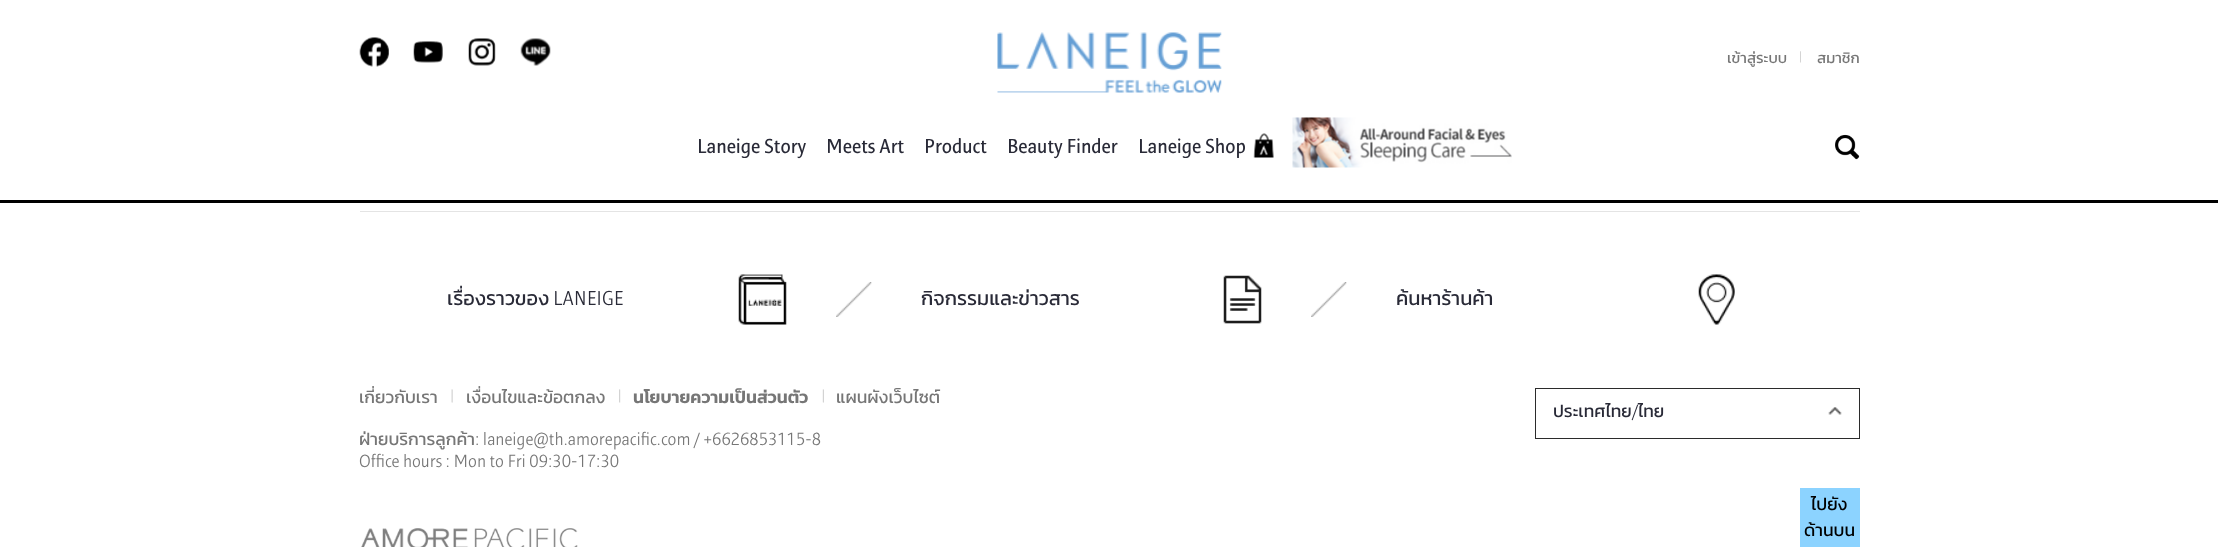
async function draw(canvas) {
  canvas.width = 2218
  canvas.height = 547
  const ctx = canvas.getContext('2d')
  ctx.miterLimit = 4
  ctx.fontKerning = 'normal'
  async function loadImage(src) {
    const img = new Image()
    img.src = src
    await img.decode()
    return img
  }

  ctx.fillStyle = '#fff'
  ctx.fillRect(0, 0, 2218, 547)
  ctx.fillStyle = '#000'
  ctx.fillRect(0, 200, 2218, 3)
  ctx.drawImage(await loadImage('image0.png'), 359, 37, 30, 30)
  ctx.drawImage(await loadImage('image1.png'), 413, 41, 30, 22)
  ctx.drawImage(await loadImage('image2.png'), 468, 38, 28, 28)
  ctx.drawImage(await loadImage('image3.png'), 520, 38, 31, 28)
  ctx.drawImage(await loadImage('image4.png'), 997, 32, 225, 61)
  ctx.font = '15px Kanit'
  ctx.fillStyle = '#767676'
  ctx.fillText('เข้าสู่ระบบ', 1727, 63)
  ctx.drawImage(await loadImage('image5.png'), 1800, 51, 1, 12)
  ctx.fillText('สมาชิก', 1817, 63)
  ctx.font = '600 20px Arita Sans'
  ctx.fillStyle = '#292a37'
  ctx.fillText('Laneige Story', 697, 153)
  ctx.fillText('Meets Art', 826, 153)
  ctx.fillText('Product', 924, 153)
  ctx.fillText('Beauty Finder', 1007, 153)
  ctx.fillText('Laneige Shop', 1138, 153)
  ctx.drawImage(await loadImage('image6.png'), 1253, 133, 21, 25)
  ctx.drawImage(await loadImage('image7.png'), 1292, 117, 220, 51)
  ctx.drawImage(await loadImage('image8.png'), 1835, 134, 25, 26)
  ctx.fillStyle = '#e4e4e4'
  ctx.fillRect(360, 211, 1500, 1)
  ctx.font = '20px Kanit'
  ctx.fillStyle = '#292a37'
  ctx.fillText('เรื่องราวของ', 447, 305)
  ctx.font = '500 20px Arita Sans'
  ctx.fillText('LANEIGE', 553, 305)
  ctx.drawImage(await loadImage('image9.png'), 738, 274, 49, 51)
  ctx.drawImage(await loadImage('image10.png'), 836, 282, 36, 35)
  ctx.font = '20px Kanit'
  ctx.fillText('กิจกรรมและข่าวสาร', 921, 305)
  ctx.drawImage(await loadImage('image11.png'), 1223, 275, 39, 49)
  ctx.drawImage(await loadImage('image10.png'), 1311, 282, 36, 35)
  ctx.fillText('ค้นหาร้านค้า', 1396, 305)
  ctx.drawImage(await loadImage('image12.png'), 1698, 274, 37, 51)
  ctx.font = '17.5px Kanit'
  ctx.fillStyle = '#767676'
  ctx.fillText('เกี่ยวกับเรา', 359, 403)
  ctx.drawImage(await loadImage('image13.png'), 451, 389, 2, 14)
  ctx.fillText('เงื่อนไขและข้อตกลง', 466, 403)
  ctx.drawImage(await loadImage('image14.png'), 619, 389, 2, 14)
  ctx.font = '600 17.5px Kanit'
  ctx.fillText('นโยบายความเป็นส่วนตัว', 633, 403)
  ctx.drawImage(await loadImage('image15.png'), 822, 389, 2, 14)
  ctx.font = '17.5px Kanit'
  ctx.fillText('แผนผังเว็บไซต์', 836, 403)
  ctx.strokeStyle = '#2b2b2b'
  ctx.strokeRect(1535.5, 388.5, 324, 50)
  ctx.drawImage(await loadImage('image16.png'), 1828, 407, 14, 8)
  ctx.fillStyle = '#292a37'
  ctx.fillText('ประเทศไทย', 1553, 417)
  ctx.font = '500 17.5px Arita Sans'
  ctx.fillText('/', 1632, 417)
  ctx.font = '17.5px Kanit'
  ctx.fillText('ไทย', 1638, 417)
  ctx.fillStyle = '#767676'
  ctx.fillText('ฝ่ายบริการลูกค้า', 359, 445)
  ctx.font = '500 17.5px Arita Sans'
  ctx.fillText(': laneige@th.amorepacific.com / +6626853115-8', 475, 445)
  ctx.fillText('Office hours : Mon to Fri 09:30-17:30', 359, 467)
  ctx.drawImage(await loadImage('image17.png'), 361, 528, 217, 19)
  ctx.fillStyle = '#8cd3ff'
  ctx.fillRect(1800, 488, 60, 59)
  ctx.font = '17.5px Kanit'
  ctx.fillStyle = '#000'
  ctx.fillText('ไปยัง', 1811, 510)
  ctx.fillText('ด้านบน', 1804, 536)
}

draw(document.querySelector('canvas'))
